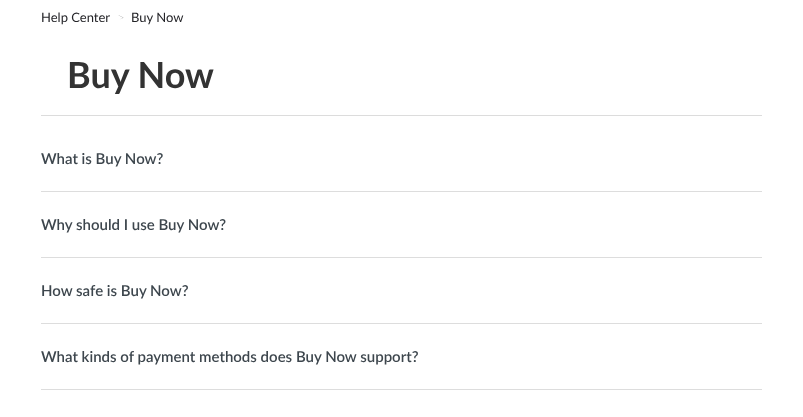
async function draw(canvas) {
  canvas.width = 803
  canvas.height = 417
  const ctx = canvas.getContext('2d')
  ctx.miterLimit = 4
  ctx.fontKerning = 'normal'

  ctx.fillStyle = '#fff'
  ctx.fillRect(0, 0, 803, 417)
  ctx.font = '13px Lato'
  ctx.fillStyle = '#242428'
  ctx.fillText('Help Center', 41, 22)
  ctx.font = '200 13px Lato'
  ctx.fillStyle = '#666'
  ctx.fillText('>', 117, 22)
  ctx.font = '13px Lato'
  ctx.fillStyle = '#242428'
  ctx.fillText('Buy Now', 131, 22)
  ctx.fillStyle = '#dcdcdc'
  ctx.fillRect(41, 115, 721, 1)
  ctx.font = 'bold 36px Lato'
  ctx.fillStyle = '#333'
  ctx.fillText('Buy Now', 67, 88)
  ctx.fillStyle = '#ddd'
  ctx.fillRect(41, 191, 721, 1)
  ctx.font = '600 15px Lato'
  ctx.fillStyle = '#3d464d'
  ctx.fillText('What is Buy Now?', 41, 164)
  ctx.fillStyle = '#ddd'
  ctx.fillRect(41, 257, 721, 1)
  ctx.fillStyle = '#3d464d'
  ctx.fillText('Why should I use Buy Now?', 41, 230)
  ctx.fillStyle = '#ddd'
  ctx.fillRect(41, 323, 721, 1)
  ctx.fillStyle = '#3d464d'
  ctx.fillText('How safe is Buy Now?', 41, 296)
  ctx.fillStyle = '#ddd'
  ctx.fillRect(41, 389, 721, 1)
  ctx.fillStyle = '#3d464d'
  ctx.fillText('What kinds of payment methods does Buy Now support?', 41, 362)
}

draw(document.querySelector('canvas'))
